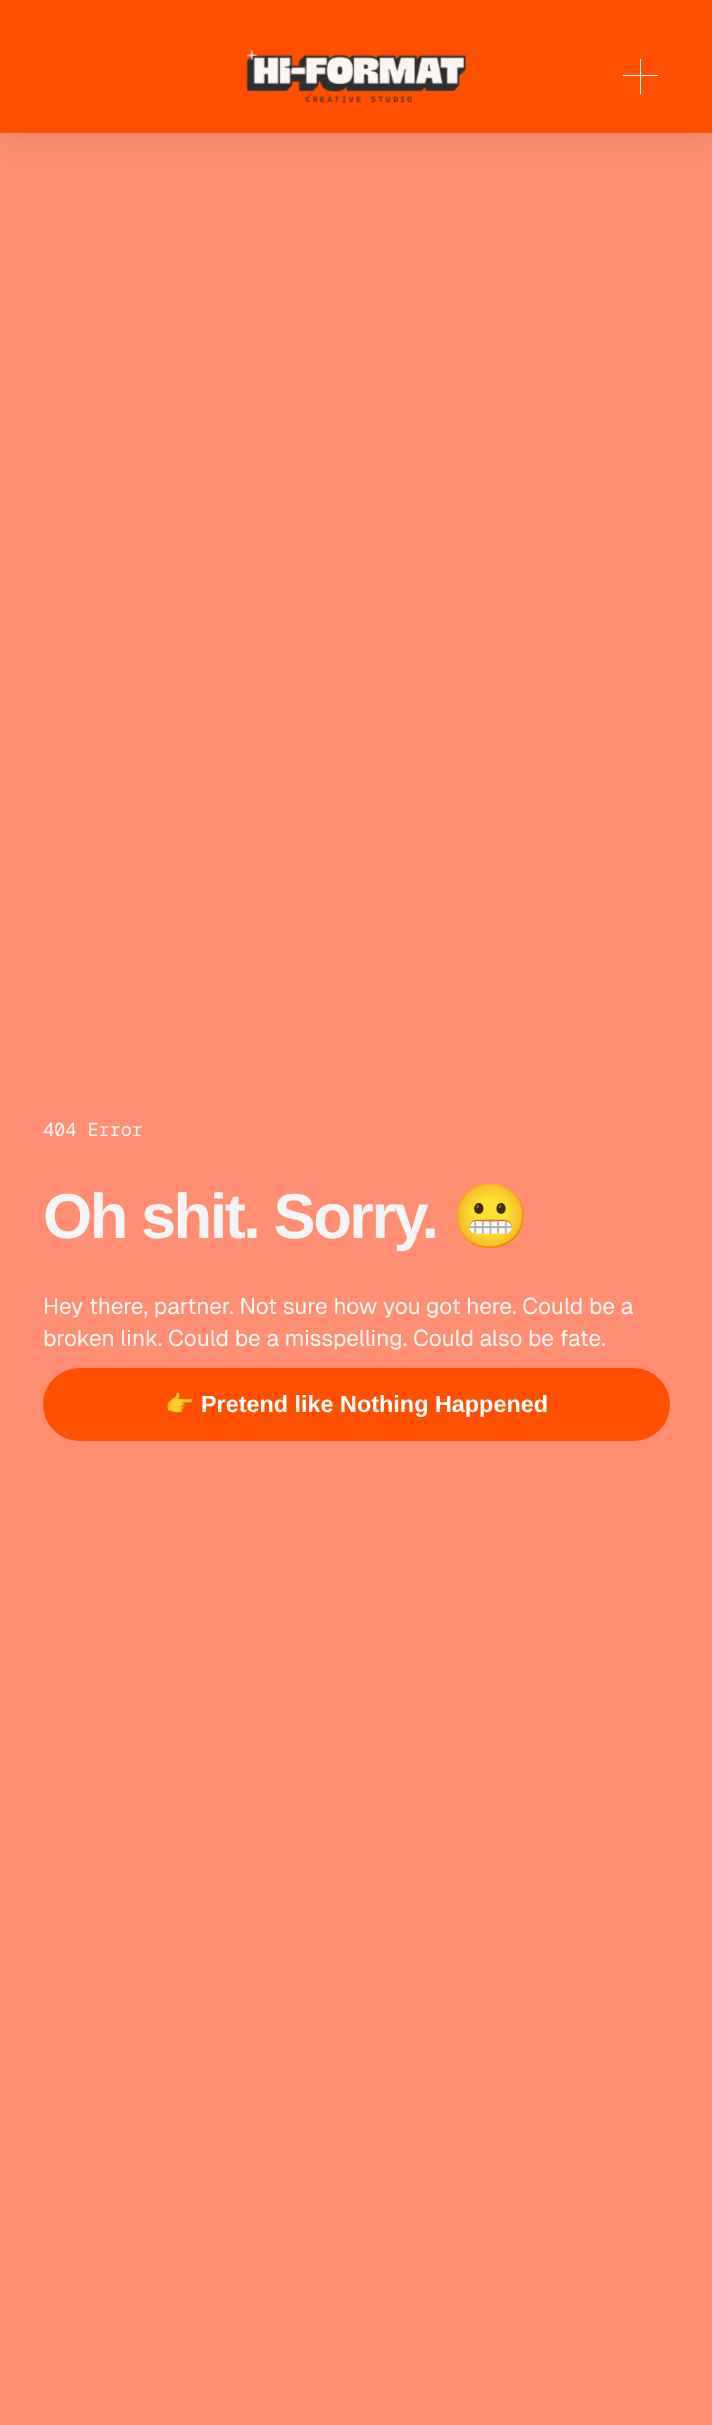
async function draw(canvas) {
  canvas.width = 712
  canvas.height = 2425
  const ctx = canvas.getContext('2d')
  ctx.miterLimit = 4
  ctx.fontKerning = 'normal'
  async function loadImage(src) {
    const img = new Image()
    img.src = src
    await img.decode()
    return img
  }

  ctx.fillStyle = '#ff8e72'
  ctx.fillRect(0, 0, 712, 2425)
  ctx.fillStyle = '#ff4f01'
  ctx.fillRect(0, 0, 712, 133)
  ctx.save()
  ctx.beginPath()
  ctx.moveTo(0, 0)
  ctx.lineTo(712, 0)
  ctx.lineTo(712, 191)
  ctx.lineTo(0, 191)
  ctx.closePath()
  ctx.moveTo(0, 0)
  ctx.lineTo(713, 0)
  ctx.lineTo(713, 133)
  ctx.lineTo(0, 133)
  ctx.closePath()
  ctx.clip('evenodd')
  ctx.fillStyle = '#2e2f2f26'
  ctx.filter = 'blur(19px)'
  ctx.beginPath()
  ctx.rect(0, 0, 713, 133)
  ctx.fill()
  ctx.filter = 'none'
  ctx.restore()
  ctx.drawImage(await loadImage('image0.png'), 246, 49, 220, 54)
  ctx.fillStyle = '#fff'
  ctx.fillRect(623, 75, 35, 1)
  ctx.fillRect(640, 59, 1, 35)
  ctx.font = '18.5px Geist Mono'
  ctx.fillStyle = '#f5f5f5'
  ctx.fillText('404 Error', 43, 1136)
  ctx.letterSpacing = '-2.5px'
  ctx.font = 'bold 63.25px Liberation Sans'
  ctx.fillText('Oh shit. Sorry.', 43, 1238)
  ctx.font = 'bold 63.25px Noto Color Emoji'
  ctx.fillText('😬', 451, 1238)
  ctx.letterSpacing = '0px'
  ctx.font = '22.7px Geist'
  ctx.fillText('Hey there, partner. Not sure how you got here. Could be a', 43, 1314)
  ctx.fillText('broken link. Could be a misspelling. Could also be fate.', 43, 1346)
  ctx.fillStyle = '#ff4f01'
  ctx.beginPath()
  ctx.roundRect(43, 1368, 627, 73, 36.5)
  ctx.fill()
  ctx.font = 'bold 23.4px Noto Color Emoji'
  ctx.fillStyle = '#fff'
  ctx.fillText('👉', 165, 1412)
  ctx.font = 'bold 23.4px Liberation Sans'
  ctx.fillText('Pretend like Nothing Happened', 201, 1412)
}

draw(document.querySelector('canvas'))
